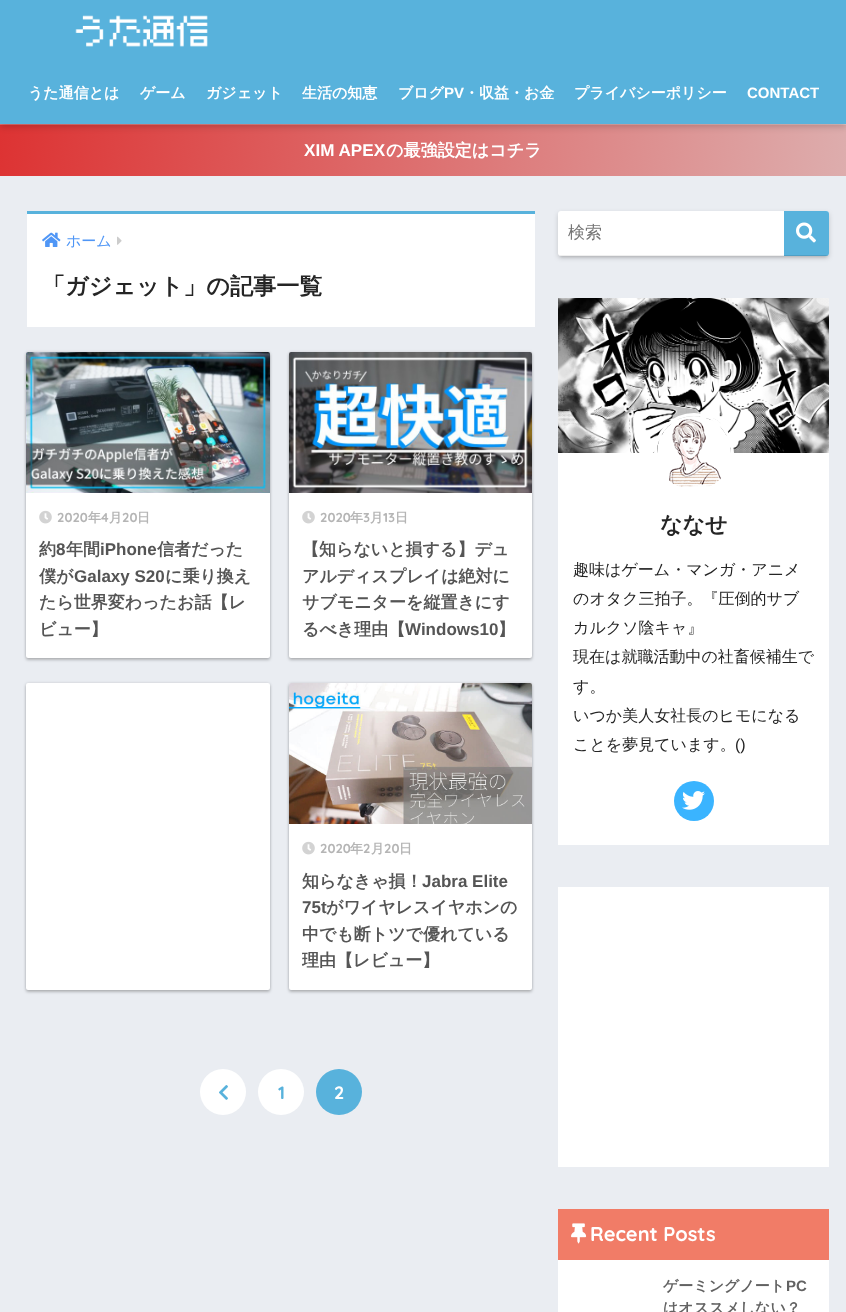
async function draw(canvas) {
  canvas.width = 846
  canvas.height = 1312
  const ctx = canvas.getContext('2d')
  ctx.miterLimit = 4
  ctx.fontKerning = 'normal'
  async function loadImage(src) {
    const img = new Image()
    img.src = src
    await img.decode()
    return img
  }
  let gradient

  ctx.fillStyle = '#eaedf2'
  ctx.fillRect(0, 0, 846, 1312)
  gradient = ctx.createLinearGradient(1, 63, 845, 136)
  gradient.addColorStop(0, '#e77070')
  gradient.addColorStop(1, '#e7c6c6')
  ctx.fillStyle = gradient
  ctx.fillRect(0, 124, 846, 1)
  gradient = ctx.createLinearGradient(1, 114, 845, 187)
  gradient.addColorStop(0, '#d33')
  gradient.addColorStop(1, '#ddadad')
  ctx.fillStyle = gradient
  ctx.fillRect(0, 125, 846, 51)
  ctx.fillStyle = '#0000002e'
  ctx.filter = 'blur(3px)'
  ctx.beginPath()
  ctx.rect(0, 3, 846, 124)
  ctx.fill()
  ctx.filter = 'none'
  ctx.fillStyle = '#58b2dc'
  ctx.fillRect(0, 0, 846, 124)
  ctx.drawImage(await loadImage('image0.png'), 75, 15, 133, 32)
  ctx.font = 'bold 15px WenQuanYi Zen Hei'
  ctx.fillStyle = '#fff'
  ctx.fillText('うた通信とは', 28, 98)
  ctx.fillText('ゲーム', 140, 98)
  ctx.fillText('ガジェット', 206, 98)
  ctx.fillText('生活の知恵', 302, 98)
  ctx.fillText('ブログ', 398, 98)
  ctx.font = 'bold 15px Liberation Sans'
  ctx.fillText('PV', 444, 98)
  ctx.font = 'bold 15px WenQuanYi Zen Hei'
  ctx.fillText('・収益・お金', 464, 98)
  ctx.fillText('プライバシーポリシー', 574, 98)
  ctx.font = 'bold 15px Liberation Sans'
  ctx.fillText('CONTACT', 747, 98)
  ctx.font = 'bold 17.1px Liberation Sans'
  ctx.fillText('XIM APEX', 304, 156)
  ctx.font = 'bold 17.1px WenQuanYi Zen Hei'
  ctx.fillText('の最強設定はコチラ', 386, 156)
  ctx.fillRect(27, 214, 508, 113)
  ctx.fillStyle = '#58b2dc'
  ctx.fillRect(27, 211, 508, 3)
  ctx.drawImage(await loadImage('image1.png'), 42, 232, 19, 15)
  ctx.font = '500 15px WenQuanYi Zen Hei'
  ctx.fillStyle = '#4f96f6'
  ctx.fillText('ホーム', 66, 246)
  ctx.drawImage(await loadImage('image2.png'), 117, 236, 5, 9)
  ctx.font = 'bold 23.1px WenQuanYi Zen Hei'
  ctx.fillStyle = '#252525'
  ctx.fillText('「ガジェット」の記事一覧', 42, 294)
  ctx.fillStyle = '#00000038'
  ctx.filter = 'blur(1.5px)'
  ctx.beginPath()
  ctx.roundRect(26, 354, 244, 306, 2)
  ctx.fill()
  ctx.filter = 'none'
  ctx.fillStyle = '#0000001f'
  ctx.filter = 'blur(1.5px)'
  ctx.beginPath()
  ctx.roundRect(26, 352, 244, 306, 2)
  ctx.fill()
  ctx.filter = 'none'
  ctx.fillStyle = '#fff'
  ctx.beginPath()
  ctx.roundRect(26, 352, 244, 306, 2)
  ctx.fill()
  ctx.drawImage(await loadImage('image3.png'), 26, 352, 244, 141)
  ctx.drawImage(await loadImage('image4.png'), 39, 510, 13, 14)
  ctx.font = 'bold 13px Quicksand'
  ctx.fillStyle = '#b5b5b5'
  ctx.fillText('2020', 57, 522)
  ctx.font = 'bold 13px WenQuanYi Zen Hei'
  ctx.fillText('年', 88, 522)
  ctx.font = 'bold 13px Quicksand'
  ctx.fillText('4', 101, 522)
  ctx.font = 'bold 13px WenQuanYi Zen Hei'
  ctx.fillText('月', 109, 522)
  ctx.font = 'bold 13px Quicksand'
  ctx.fillText('20', 122, 522)
  ctx.font = 'bold 13px WenQuanYi Zen Hei'
  ctx.fillText('日', 137, 522)
  ctx.font = 'bold 17px WenQuanYi Zen Hei'
  ctx.fillStyle = '#555'
  ctx.fillText('約', 39, 555)
  ctx.font = 'bold 17px Liberation Sans'
  ctx.fillText('8', 56, 555)
  ctx.font = 'bold 17px WenQuanYi Zen Hei'
  ctx.fillText('年間', 66, 555)
  ctx.font = 'bold 17px Liberation Sans'
  ctx.fillText('iPhone', 100, 555)
  ctx.font = 'bold 17px WenQuanYi Zen Hei'
  ctx.fillText('信者だった', 157, 555)
  ctx.fillText('僕が', 39, 582)
  ctx.font = 'bold 17px Liberation Sans'
  ctx.fillText('Galaxy S20', 74, 582)
  ctx.font = 'bold 17px WenQuanYi Zen Hei'
  ctx.fillText('に乗り換え', 165, 582)
  ctx.fillText('たら世界変わったお話【レ', 39, 608)
  ctx.fillText('ビュー】', 39, 635)
  ctx.fillStyle = '#00000038'
  ctx.filter = 'blur(1.5px)'
  ctx.beginPath()
  ctx.roundRect(289, 354, 243, 306, 2)
  ctx.fill()
  ctx.filter = 'none'
  ctx.fillStyle = '#0000001f'
  ctx.filter = 'blur(1.5px)'
  ctx.beginPath()
  ctx.roundRect(289, 352, 243, 306, 2)
  ctx.fill()
  ctx.filter = 'none'
  ctx.fillStyle = '#fff'
  ctx.beginPath()
  ctx.roundRect(289, 352, 243, 306, 2)
  ctx.fill()
  ctx.drawImage(await loadImage('image5.png'), 289, 352, 243, 141)
  ctx.drawImage(await loadImage('image4.png'), 302, 510, 13, 14)
  ctx.font = 'bold 13px Quicksand'
  ctx.fillStyle = '#b5b5b5'
  ctx.fillText('2020', 320, 522)
  ctx.font = 'bold 13px WenQuanYi Zen Hei'
  ctx.fillText('年', 350, 522)
  ctx.font = 'bold 13px Quicksand'
  ctx.fillText('3', 363, 522)
  ctx.font = 'bold 13px WenQuanYi Zen Hei'
  ctx.fillText('月', 370, 522)
  ctx.font = 'bold 13px Quicksand'
  ctx.fillText('13', 383, 522)
  ctx.font = 'bold 13px WenQuanYi Zen Hei'
  ctx.fillText('日', 395, 522)
  ctx.font = 'bold 17px WenQuanYi Zen Hei'
  ctx.fillStyle = '#555'
  ctx.fillText('【知らないと損する】デュ', 302, 555)
  ctx.fillText('アルディスプレイは絶対に', 302, 582)
  ctx.fillText('サブモニターを縦置きにす', 302, 608)
  ctx.fillText('るべき理由【', 302, 635)
  ctx.font = 'bold 17px Liberation Sans'
  ctx.fillText('Windows10', 405, 635)
  ctx.font = 'bold 17px WenQuanYi Zen Hei'
  ctx.fillText('】', 498, 635)
  ctx.fillStyle = '#00000038'
  ctx.filter = 'blur(1.5px)'
  ctx.beginPath()
  ctx.roundRect(26, 685, 244, 307, 2)
  ctx.fill()
  ctx.filter = 'none'
  ctx.fillStyle = '#0000001f'
  ctx.filter = 'blur(1.5px)'
  ctx.beginPath()
  ctx.roundRect(26, 683, 244, 307, 2)
  ctx.fill()
  ctx.filter = 'none'
  ctx.fillStyle = '#fff'
  ctx.beginPath()
  ctx.roundRect(26, 683, 244, 307, 2)
  ctx.fill()
  ctx.fillStyle = '#00000038'
  ctx.filter = 'blur(1.5px)'
  ctx.beginPath()
  ctx.roundRect(289, 685, 243, 307, 2)
  ctx.fill()
  ctx.filter = 'none'
  ctx.fillStyle = '#0000001f'
  ctx.filter = 'blur(1.5px)'
  ctx.beginPath()
  ctx.roundRect(289, 683, 243, 307, 2)
  ctx.fill()
  ctx.filter = 'none'
  ctx.fillStyle = '#fff'
  ctx.beginPath()
  ctx.roundRect(289, 683, 243, 307, 2)
  ctx.fill()
  ctx.drawImage(await loadImage('image6.png'), 289, 683, 243, 141)
  ctx.drawImage(await loadImage('image4.png'), 302, 841, 13, 14)
  ctx.font = 'bold 13px Quicksand'
  ctx.fillStyle = '#b5b5b5'
  ctx.fillText('2020', 320, 853)
  ctx.font = 'bold 13px WenQuanYi Zen Hei'
  ctx.fillText('年', 350, 853)
  ctx.font = 'bold 13px Quicksand'
  ctx.fillText('2', 363, 853)
  ctx.font = 'bold 13px WenQuanYi Zen Hei'
  ctx.fillText('月', 371, 853)
  ctx.font = 'bold 13px Quicksand'
  ctx.fillText('20', 384, 853)
  ctx.font = 'bold 13px WenQuanYi Zen Hei'
  ctx.fillText('日', 399, 853)
  ctx.font = 'bold 17px WenQuanYi Zen Hei'
  ctx.fillStyle = '#555'
  ctx.fillText('知らなきゃ損！', 302, 887)
  ctx.font = 'bold 17px Liberation Sans'
  ctx.fillText('Jabra Elite', 422, 887)
  ctx.fillText('75t', 302, 913)
  ctx.font = 'bold 17px WenQuanYi Zen Hei'
  ctx.fillText('がワイヤレスイヤホンの', 326, 913)
  ctx.fillText('中でも断トツで優れている', 302, 940)
  ctx.fillText('理由【レビュー】', 302, 966)
  ctx.fillStyle = '#fff'
  ctx.beginPath()
  ctx.arc(223, 1092, 23, 0, 2 * Math.PI)
  ctx.fill()
  ctx.drawImage(await loadImage('image7.png'), 219, 1085, 9, 15)
  ctx.beginPath()
  ctx.arc(281, 1092, 23, 0, 2 * Math.PI)
  ctx.fill()
  ctx.font = 'bold 18px Quicksand'
  ctx.fillStyle = '#58b2dc'
  ctx.fillText('1', 278, 1099)
  ctx.beginPath()
  ctx.arc(339, 1092, 23, 0, 2 * Math.PI)
  ctx.fill()
  ctx.fillStyle = '#fff'
  ctx.fillText('2', 334, 1099)
  ctx.fillStyle = '#00000026'
  ctx.filter = 'blur(1.5px)'
  ctx.beginPath()
  ctx.roundRect(560, 216, 267, 41, 1)
  ctx.fill()
  ctx.filter = 'none'
  ctx.filter = 'blur(2.5px)'
  ctx.beginPath()
  ctx.roundRect(558, 213, 271, 45, 3)
  ctx.fill()
  ctx.filter = 'none'
  ctx.fillStyle = '#fff'
  ctx.beginPath()
  ctx.roundRect(558, 211, 271, 45, 3)
  ctx.fill()
  ctx.fillStyle = '#efefef'
  ctx.fillRect(560, 255, 268, 1)
  ctx.font = '500 17px WenQuanYi Zen Hei'
  ctx.fillStyle = '#757575'
  ctx.fillText('検索', 568, 238)
  ctx.fillStyle = '#58b2dc'
  ctx.beginPath()
  ctx.roundRect(784, 211, 45, 45, [0, 3, 3, 0])
  ctx.fill()
  ctx.fillStyle = '#0000001a'
  ctx.fillRect(784, 255, 44, 1)
  ctx.drawImage(await loadImage('image8.png'), 796, 222, 20, 21)
  ctx.fillStyle = '#fff'
  ctx.fillRect(558, 453, 271, 392)
  ctx.drawImage(await loadImage('image9.png'), 558, 298, 271, 155)
  ctx.beginPath()
  ctx.arc(694, 453, 38.5, 0, 2 * Math.PI)
  ctx.strokeStyle = '#fff'
  ctx.lineWidth = 3
  ctx.stroke()
  ctx.drawImage(await loadImage('image10.png'), 657, 416, 74, 71)
  ctx.font = 'bold 22px WenQuanYi Zen Hei'
  ctx.fillStyle = '#252525'
  ctx.fillText('ななせ', 660, 532)
  ctx.font = '500 16px WenQuanYi Zen Hei'
  ctx.fillText('趣味はゲーム・マンガ・アニメ', 573, 575)
  ctx.fillText('のオタク三拍子。『圧倒的サブ', 573, 604)
  ctx.fillText('カルクソ陰キャ』', 573, 633)
  ctx.fillText('現在は就職活動中の社畜候補生で', 573, 662)
  ctx.fillText('す。', 573, 692)
  ctx.fillText('いつか美人女社長のヒモになる', 573, 721)
  ctx.fillText('ことを夢見ています。', 573, 750)
  ctx.font = '16px Liberation Sans'
  ctx.fillText('()', 735, 750)
  ctx.fillStyle = '#3ab4ff'
  ctx.beginPath()
  ctx.arc(694, 801, 20, 0, 2 * Math.PI)
  ctx.fill()
  ctx.drawImage(await loadImage('image11.png'), 682, 791, 23, 19)
  ctx.fillStyle = '#fff'
  ctx.fillRect(558, 887, 271, 280)
  ctx.fillRect(558, 1260, 271, 52)
  ctx.fillStyle = '#f17c67'
  ctx.fillRect(558, 1209, 271, 51)
  ctx.drawImage(await loadImage('image12.png'), 571, 1223, 16, 21)
  ctx.font = 'bold 20px Quicksand'
  ctx.fillStyle = '#fff'
  ctx.fillText('Recent Posts', 590, 1241)
  ctx.font = 'bold 15px WenQuanYi Zen Hei'
  ctx.fillStyle = '#626262'
  ctx.fillText('ゲーミングノート', 663, 1291)
  ctx.font = 'bold 15px Liberation Sans'
  ctx.fillText('PC', 786, 1291)
  ctx.font = 'bold 15px WenQuanYi Zen Hei'
  ctx.fillText('はオススメしない？', 663, 1313)
}

draw(document.querySelector('canvas'))
